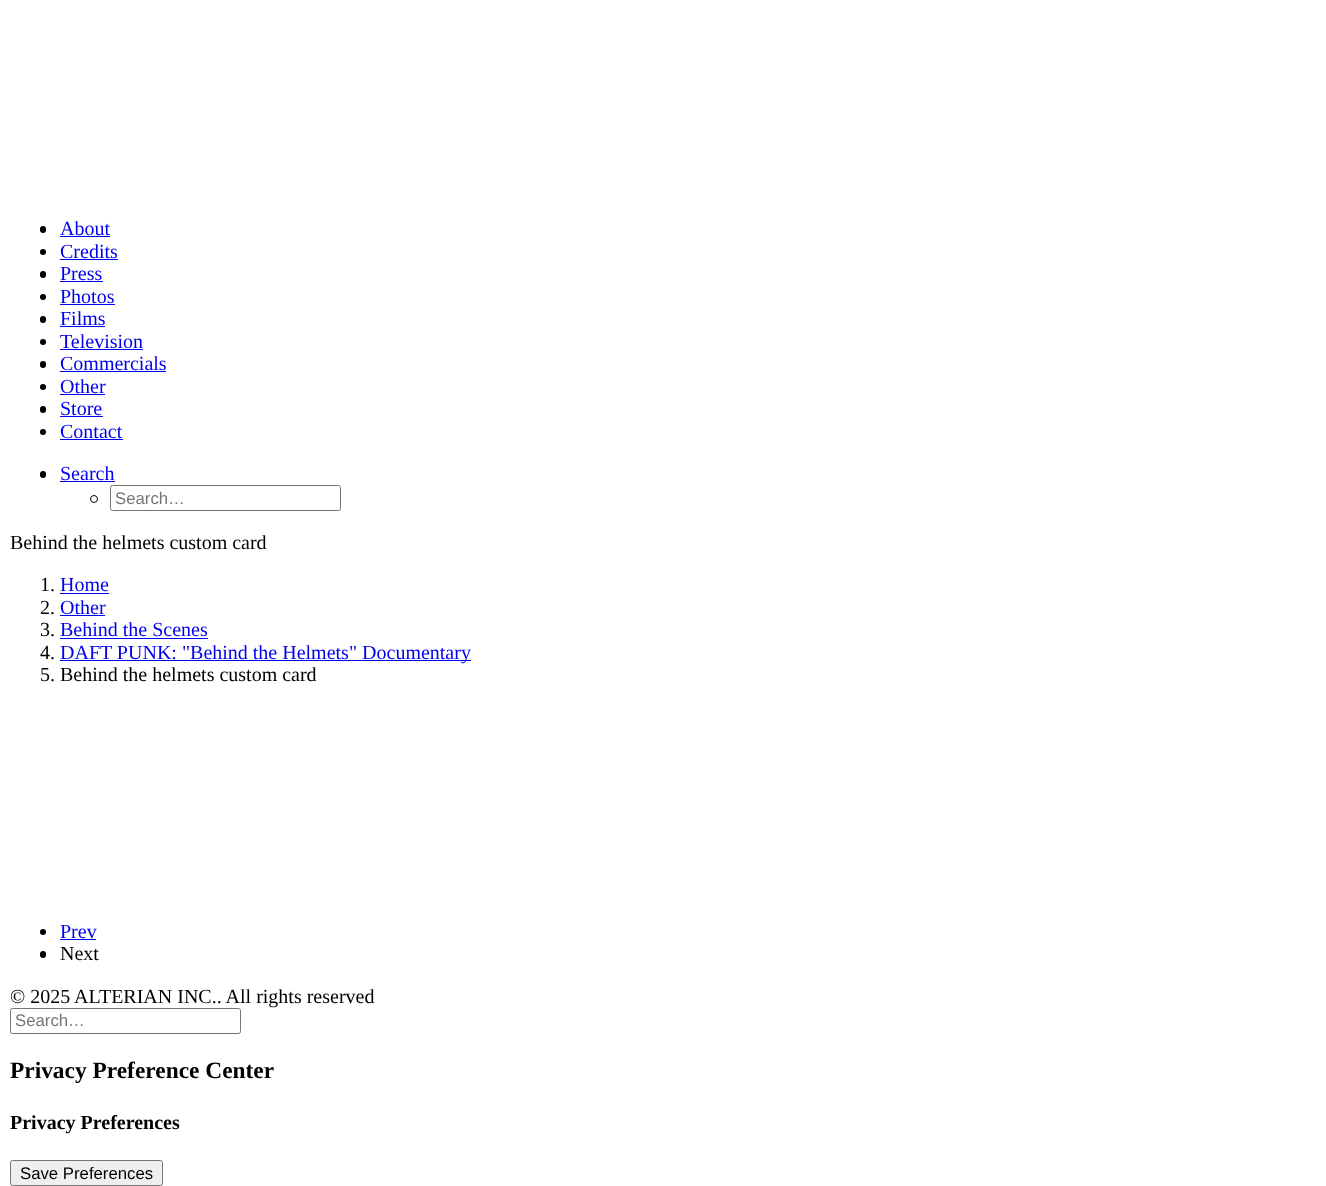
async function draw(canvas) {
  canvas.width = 1326
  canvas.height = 1186
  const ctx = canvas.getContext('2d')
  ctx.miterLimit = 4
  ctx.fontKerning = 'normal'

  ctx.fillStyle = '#fff'
  ctx.fillRect(0, 0, 1326, 1186)
  ctx.fillStyle = '#000'
  ctx.beginPath()
  ctx.roundRect(40, 226, 6, 7, 3)
  ctx.fill()
  ctx.font = '20px Liberation Serif'
  ctx.fillStyle = '#00e'
  ctx.fillText('About', 60, 235)
  ctx.fillRect(60, 236, 50, 1)
  ctx.fillStyle = '#000'
  ctx.beginPath()
  ctx.arc(43, 252, 3, 0, 2 * Math.PI)
  ctx.fill()
  ctx.fillStyle = '#00e'
  ctx.fillText('Credits', 60, 258)
  ctx.fillRect(60, 259, 58, 1)
  ctx.fillStyle = '#000'
  ctx.beginPath()
  ctx.roundRect(40, 271, 6, 7, 3)
  ctx.fill()
  ctx.fillStyle = '#00e'
  ctx.fillText('Press', 60, 280)
  ctx.fillRect(60, 281, 43, 1)
  ctx.fillStyle = '#000'
  ctx.beginPath()
  ctx.arc(43, 297, 3, 0, 2 * Math.PI)
  ctx.fill()
  ctx.fillStyle = '#00e'
  ctx.fillText('Photos', 60, 303)
  ctx.fillRect(60, 304, 55, 1)
  ctx.fillStyle = '#000'
  ctx.beginPath()
  ctx.roundRect(40, 316, 6, 7, 3)
  ctx.fill()
  ctx.fillStyle = '#00e'
  ctx.fillText('Films', 60, 325)
  ctx.fillRect(60, 326, 45, 1)
  ctx.fillStyle = '#000'
  ctx.beginPath()
  ctx.arc(43, 342, 3, 0, 2 * Math.PI)
  ctx.fill()
  ctx.fillStyle = '#00e'
  ctx.fillText('Television', 60, 348)
  ctx.fillRect(60, 349, 83, 1)
  ctx.fillStyle = '#000'
  ctx.beginPath()
  ctx.roundRect(40, 361, 6, 7, 3)
  ctx.fill()
  ctx.fillStyle = '#00e'
  ctx.fillText('Commercials', 60, 370)
  ctx.fillRect(60, 371, 106, 1)
  ctx.fillStyle = '#000'
  ctx.beginPath()
  ctx.arc(43, 387, 3, 0, 2 * Math.PI)
  ctx.fill()
  ctx.fillStyle = '#00e'
  ctx.fillText('Other', 60, 393)
  ctx.fillRect(60, 394, 45, 1)
  ctx.fillStyle = '#000'
  ctx.beginPath()
  ctx.roundRect(40, 406, 6, 7, 3)
  ctx.fill()
  ctx.fillStyle = '#00e'
  ctx.fillText('Store', 60, 415)
  ctx.fillRect(60, 416, 43, 1)
  ctx.fillStyle = '#000'
  ctx.beginPath()
  ctx.arc(43, 432, 3, 0, 2 * Math.PI)
  ctx.fill()
  ctx.fillStyle = '#00e'
  ctx.fillText('Contact', 60, 438)
  ctx.fillRect(60, 439, 63, 1)
  ctx.fillStyle = '#000'
  ctx.beginPath()
  ctx.roundRect(40, 471, 6, 7, 3)
  ctx.fill()
  ctx.fillStyle = '#00e'
  ctx.fillText('Search', 60, 480)
  ctx.fillRect(60, 481, 55, 1)
  ctx.beginPath()
  ctx.arc(94, 499, 3.5, 0, 2 * Math.PI)
  ctx.strokeStyle = '#000'
  ctx.stroke()
  ctx.beginPath()
  ctx.roundRect(110.5, 485.5, 230, 25, 2)
  ctx.strokeStyle = '#767676'
  ctx.stroke()
  ctx.font = '16.75px Liberation Sans'
  ctx.fillStyle = '#757575'
  ctx.fillText('Search…', 115, 504)
  ctx.font = '20px Liberation Serif'
  ctx.fillStyle = '#000'
  ctx.fillText('Behind the helmets custom card', 10, 549)
  ctx.fillText('1.', 40, 591)
  ctx.fillStyle = '#00e'
  ctx.fillText('Home', 60, 591)
  ctx.fillRect(60, 593, 49, 1)
  ctx.fillStyle = '#000'
  ctx.fillText('2.', 40, 614)
  ctx.fillStyle = '#00e'
  ctx.fillText('Other', 60, 614)
  ctx.fillRect(60, 615, 45, 1)
  ctx.fillStyle = '#000'
  ctx.fillText('3.', 40, 636)
  ctx.fillStyle = '#00e'
  ctx.fillText('Behind the Scenes', 60, 636)
  ctx.fillRect(60, 638, 148, 1)
  ctx.fillStyle = '#000'
  ctx.fillText('4.', 40, 659)
  ctx.fillStyle = '#00e'
  ctx.fillRect(60, 660, 411, 1)
  ctx.fillText('DAFT PUNK: "Behind the Helmets" Documentary', 60, 659)
  ctx.fillStyle = '#000'
  ctx.fillText('5. Behind the helmets custom card', 40, 681)
  ctx.beginPath()
  ctx.arc(43, 932, 3, 0, 2 * Math.PI)
  ctx.fill()
  ctx.fillStyle = '#00e'
  ctx.fillText('Prev', 60, 938)
  ctx.fillRect(60, 939, 36, 1)
  ctx.fillStyle = '#000'
  ctx.beginPath()
  ctx.roundRect(40, 951, 6, 7, 3)
  ctx.fill()
  ctx.fillText('Next', 60, 960)
  ctx.fillText('© 2025 ALTERIAN INC.. All rights reserved', 10, 1003)
  ctx.beginPath()
  ctx.roundRect(10.5, 1008.5, 230, 25, 2)
  ctx.stroke()
  ctx.font = '16.75px Liberation Sans'
  ctx.fillStyle = '#757575'
  ctx.fillText('Search…', 15, 1026)
  ctx.font = 'bold 23.4px Liberation Serif'
  ctx.fillStyle = '#000'
  ctx.fillText('Privacy Preference Center', 10, 1078)
  ctx.font = 'bold 20px Liberation Serif'
  ctx.fillText('Privacy Preferences', 10, 1129)
  ctx.fillStyle = '#efefef'
  ctx.beginPath()
  ctx.roundRect(10.5, 1160.5, 152, 25, 2)
  ctx.fill()
  ctx.stroke()
  ctx.font = '16.75px Liberation Sans'
  ctx.fillStyle = '#000'
  ctx.fillText('Save Preferences', 20, 1179)
}

draw(document.querySelector('canvas'))
